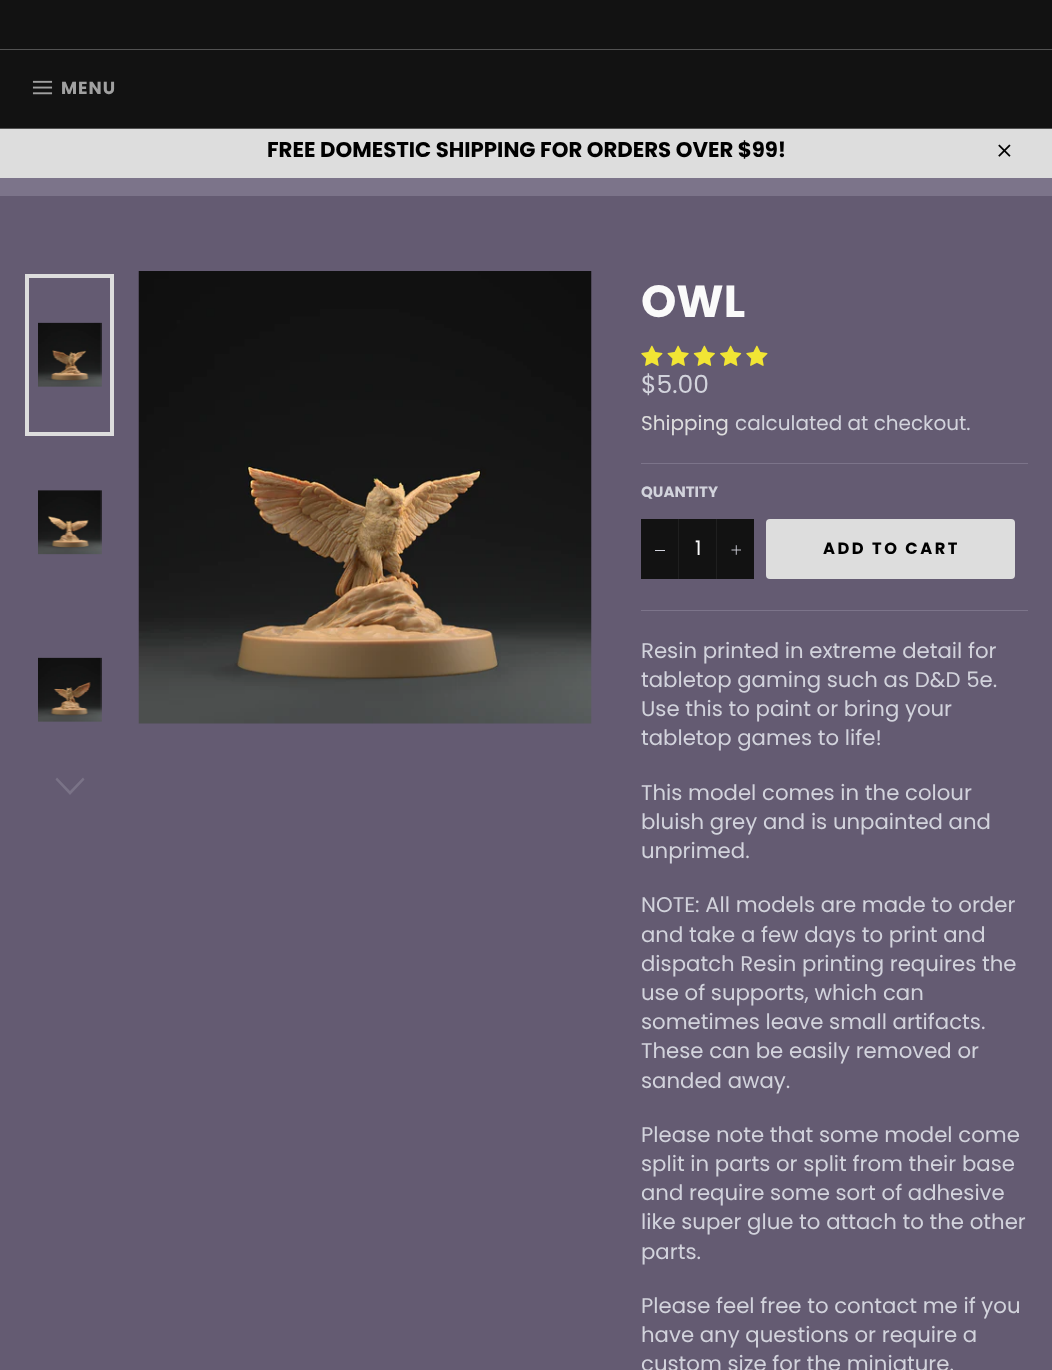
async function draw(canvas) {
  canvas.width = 1052
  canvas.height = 1370
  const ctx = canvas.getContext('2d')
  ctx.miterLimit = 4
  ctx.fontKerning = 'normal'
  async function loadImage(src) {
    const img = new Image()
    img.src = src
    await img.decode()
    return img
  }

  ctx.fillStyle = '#7c748a'
  ctx.fillRect(0, 0, 1052, 1370)
  ctx.fillStyle = '#121212'
  ctx.fillRect(0, 0, 1052, 49)
  ctx.fillRect(0, 50, 1052, 78)
  ctx.fillStyle = '#525252'
  ctx.fillRect(0, 49, 1052, 1)
  ctx.fillRect(0, 128, 1052, 1)
  ctx.drawImage(await loadImage('image0.png'), 32, 80, 21, 15)
  ctx.letterSpacing = '1px'
  ctx.font = 'bold 17.5px Poppins'
  ctx.fillStyle = '#a0a0a0'
  ctx.fillText('MENU', 61, 94)
  ctx.fillStyle = '#ddd'
  ctx.fillRect(0, 129, 1052, 49)
  ctx.letterSpacing = '0px'
  ctx.font = 'bold 21.25px Poppins'
  ctx.fillStyle = '#000'
  ctx.fillText('FREE DOMESTIC SHIPPING FOR ORDERS OVER $99!', 267, 157)
  ctx.drawImage(await loadImage('image1.png'), 998, 144, 13, 13)
  ctx.fillStyle = '#645b72'
  ctx.fillRect(0, 196, 1052, 1174)
  ctx.drawImage(await loadImage('image2.png'), 38, 322, 64, 65)
  ctx.strokeStyle = '#ddd'
  ctx.lineWidth = 4
  ctx.strokeRect(27, 276, 85, 158)
  ctx.drawImage(await loadImage('image3.png'), 38, 490, 64, 65)
  ctx.drawImage(await loadImage('image4.png'), 38, 657, 64, 65)
  ctx.fillStyle = '#7a7387'
  ctx.beginPath()
  ctx.moveTo(83, 777.5)
  ctx.lineTo(84.5, 779.5)
  ctx.lineTo(70, 795)
  ctx.lineTo(55.5, 779.5)
  ctx.lineTo(57, 777.5)
  ctx.lineTo(70, 791)
  ctx.closePath()
  ctx.fill()
  ctx.drawImage(await loadImage('image5.png'), 138, 271, 454, 453)
  ctx.font = 'bold 45px Poppins'
  ctx.fillStyle = '#fafafa'
  ctx.fillText('OWL', 641, 317)
  ctx.drawImage(await loadImage('image6.png'), 641, 345, 22, 21)
  ctx.drawImage(await loadImage('image7.png'), 667, 345, 22, 21)
  ctx.drawImage(await loadImage('image8.png'), 693, 345, 22, 21)
  ctx.drawImage(await loadImage('image9.png'), 720, 345, 22, 21)
  ctx.drawImage(await loadImage('image6.png'), 746, 345, 22, 21)
  ctx.font = '25px Poppins'
  ctx.fillStyle = '#d2d3dc'
  ctx.fillText('$5.00', 641, 393)
  ctx.font = '20px Poppins'
  ctx.fillStyle = '#ddd'
  ctx.fillText('Shipping', 641, 430)
  ctx.fillStyle = '#d2d3dc'
  ctx.fillText('calculated at checkout.', 735, 430)
  ctx.fillStyle = '#7c748a'
  ctx.fillRect(641, 463, 387, 1)
  ctx.font = 'bold 15px Poppins'
  ctx.fillStyle = '#d2d3dc'
  ctx.fillText('QUANTITY', 641, 497)
  ctx.fillStyle = '#121212'
  ctx.fillRect(641, 519, 113, 60)
  ctx.fillStyle = '#1f1f1f'
  ctx.fillRect(678, 519, 1, 60)
  ctx.fillStyle = '#d2d3dc'
  ctx.fillRect(655, 550, 10, 1)
  ctx.font = '20px Poppins'
  ctx.fillStyle = '#fafafa'
  ctx.fillText('1', 695, 555)
  ctx.fillStyle = '#1f1f1f'
  ctx.fillRect(716, 519, 1, 60)
  ctx.drawImage(await loadImage('image10.png'), 731, 545, 10, 10)
  ctx.fillStyle = '#ddd'
  ctx.beginPath()
  ctx.roundRect(766, 519, 249, 60, 4)
  ctx.fill()
  ctx.letterSpacing = '2.5px'
  ctx.font = 'bold 16.25px Poppins'
  ctx.fillStyle = '#000'
  ctx.fillText('ADD TO CART', 823, 554)
  ctx.fillStyle = '#7c748a'
  ctx.fillRect(641, 610, 387, 1)
  ctx.letterSpacing = '0px'
  ctx.font = '21.25px Poppins'
  ctx.fillStyle = '#d2d3dc'
  ctx.fillText('Resin printed in extreme detail for', 641, 658)
  ctx.fillText('tabletop gaming such as D&D 5e.', 641, 687)
  ctx.fillText('Use this to paint or bring your', 641, 716)
  ctx.fillText('tabletop games to life!', 641, 745)
  ctx.fillText('This model comes in the colour', 641, 800)
  ctx.fillText('bluish grey and is unpainted and', 641, 829)
  ctx.fillText('unprimed.', 641, 858)
  ctx.fillText('NOTE: All models are made to order', 641, 912)
  ctx.fillText('and take a few days to print and', 641, 942)
  ctx.fillText('dispatch Resin printing requires the', 641, 971)
  ctx.fillText('use of supports, which can', 641, 1000)
  ctx.fillText('sometimes leave small artifacts.', 641, 1029)
  ctx.fillText('These can be easily removed or', 641, 1058)
  ctx.fillText('sanded away.', 641, 1088)
  ctx.fillText('Please note that some model come', 641, 1142)
  ctx.fillText('split in parts or split from their base', 641, 1171)
  ctx.fillText('and require some sort of adhesive', 641, 1200)
  ctx.fillText('like super glue to attach to the other', 641, 1229)
  ctx.fillText('parts.', 641, 1259)
  ctx.fillText('Please feel free to contact me if you', 641, 1313)
  ctx.fillText('have any questions or require a', 641, 1342)
  ctx.fillText('custom size for the miniature.', 641, 1371)
}

draw(document.querySelector('canvas'))
